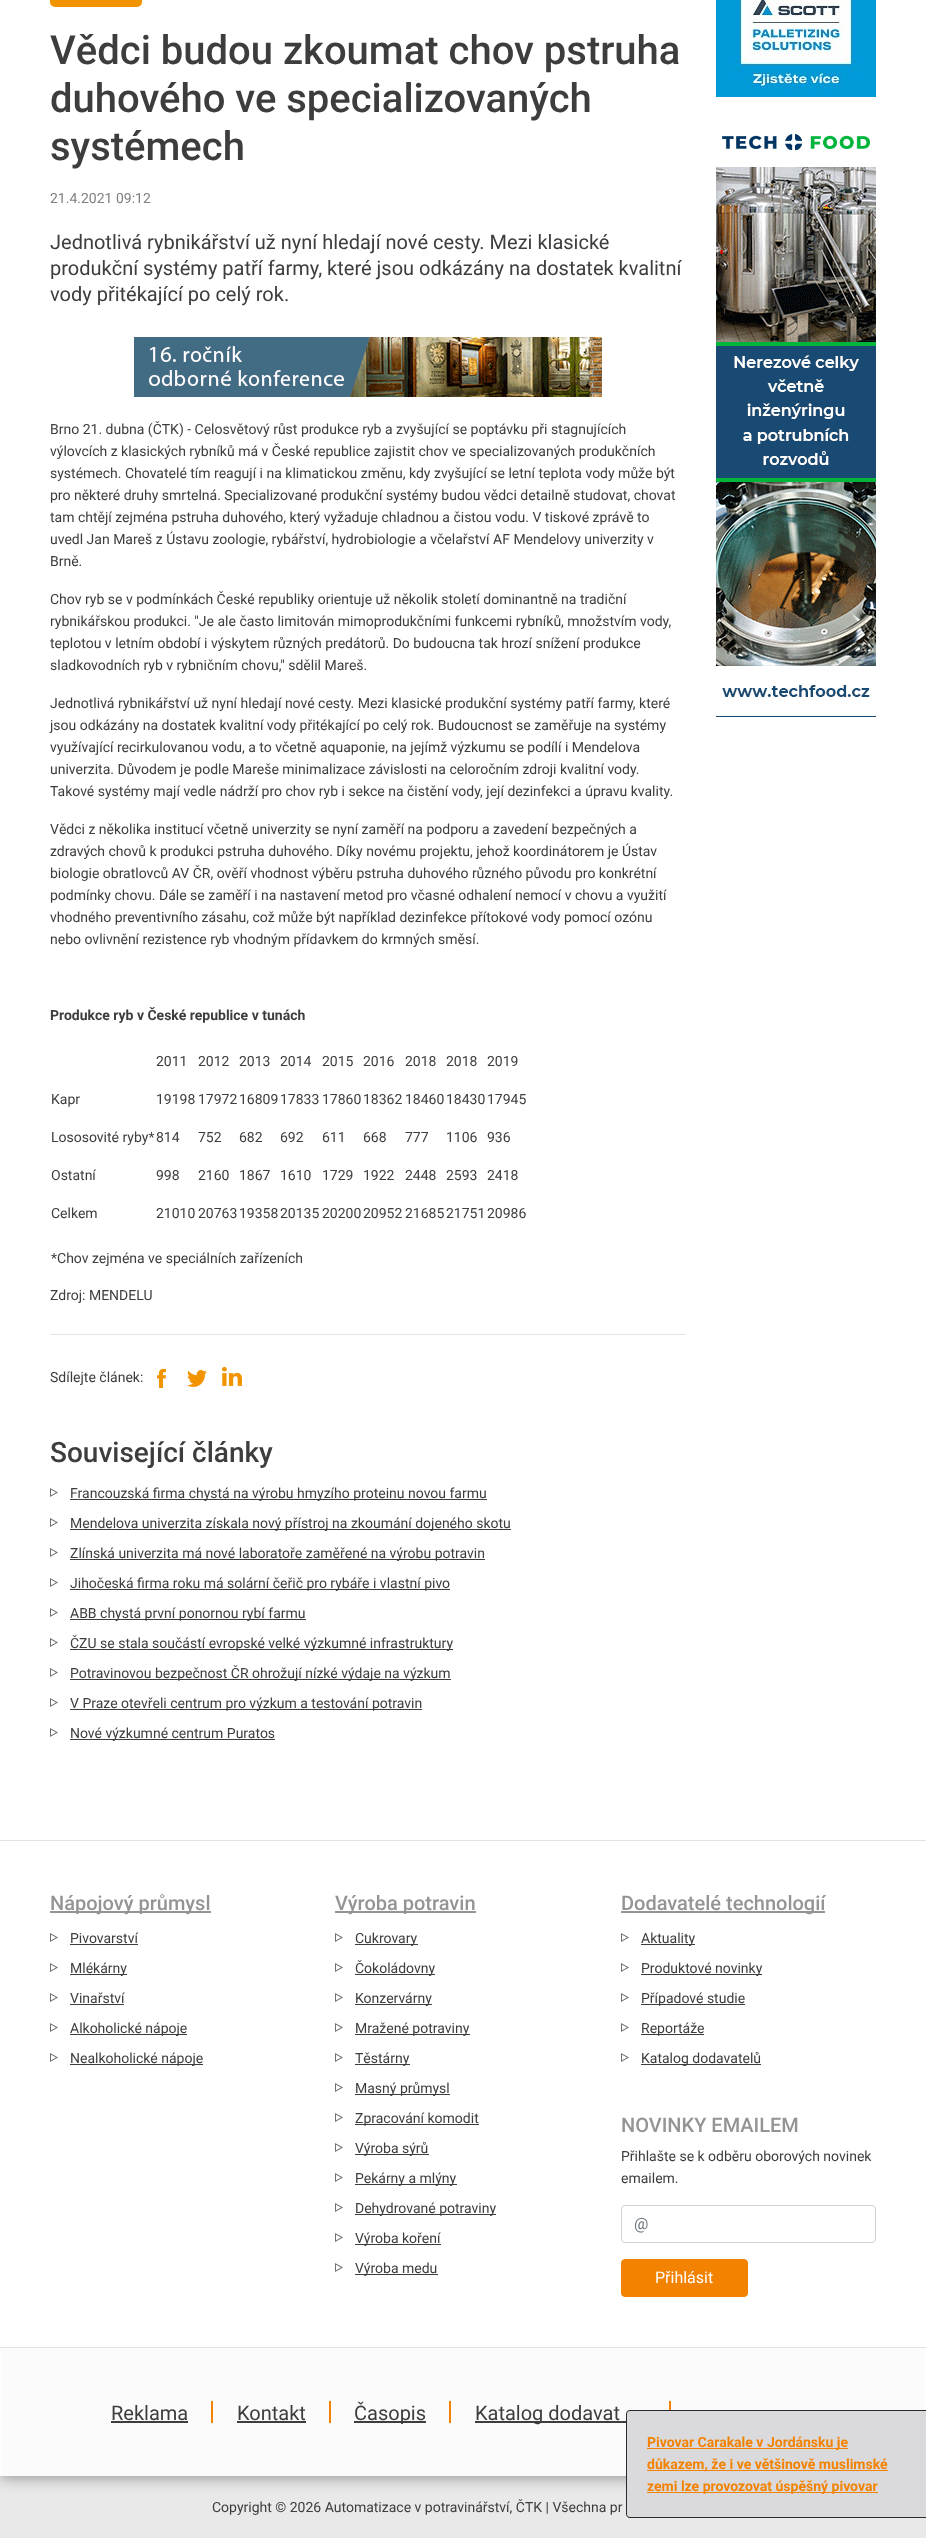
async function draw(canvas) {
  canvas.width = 926
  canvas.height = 2538
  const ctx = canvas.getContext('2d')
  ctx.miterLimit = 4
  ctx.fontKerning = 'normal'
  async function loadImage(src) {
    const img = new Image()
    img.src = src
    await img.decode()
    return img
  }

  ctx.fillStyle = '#e9e9e9'
  ctx.fillRect(0, 0, 926, 2538)
  ctx.fillStyle = '#00000066'
  ctx.filter = 'blur(7.5px)'
  ctx.beginPath()
  ctx.rect(0, -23, 926, 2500)
  ctx.fill()
  ctx.filter = 'none'
  ctx.fillStyle = '#fff'
  ctx.fillRect(0, 0, 926, 2476)
  ctx.fillStyle = '#f29400'
  ctx.beginPath()
  ctx.roundRect(50, -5, 92, 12, 5)
  ctx.fill()
  ctx.font = '500 40px Roboto'
  ctx.fillStyle = '#3d3d3d'
  ctx.fillText('Vědci budou zkoumat chov pstruha', 50, 64)
  ctx.fillText('duhového ve specializovaných', 50, 112)
  ctx.fillText('systémech', 50, 160)
  ctx.font = '14px Roboto'
  ctx.fillStyle = '#808080'
  ctx.fillText('21.4.2021 09:12', 50, 203)
  ctx.font = '20px Roboto'
  ctx.fillStyle = '#3d3d3d'
  ctx.fillText('Jednotlivá rybnikářství už nyní hledají nové cesty. Mezi klasické', 50, 249)
  ctx.fillText('produkční systémy patří farmy, které jsou odkázány na dostatek kvalitní', 50, 275)
  ctx.fillText('vody přitékající po celý rok.', 50, 301)
  ctx.drawImage(await loadImage('image0.png'), 134, 337, 468, 60)
  ctx.font = '14px Roboto'
  ctx.fillText('Brno 21. dubna (ČTK) - Celosvětový růst produkce ryb a zvyšující se poptávku při stagnujících', 50, 434)
  ctx.fillText('výlovcích z klasických rybníků má v České republice zajistit chov ve specializovaných produkčních', 50, 456)
  ctx.fillText('systémech. Chovatelé tím reagují i na klimatickou změnu, kdy zvyšující se letní teplota vody může být', 50, 478)
  ctx.fillText('pro některé druhy smrtelná. Specializované produkční systémy budou vědci detailně studovat, chovat', 50, 500)
  ctx.fillText('tam chtějí zejména pstruha duhového, který vyžaduje chladnou a čistou vodu. V tiskové zprávě to', 50, 522)
  ctx.fillText('uvedl Jan Mareš z Ústavu zoologie, rybářství, hydrobiologie a včelařství AF Mendelovy univerzity v', 50, 544)
  ctx.fillText('Brně.', 50, 566)
  ctx.fillText('Chov ryb se v podmínkách České republiky orientuje už několik století dominantně na tradiční', 50, 604)
  ctx.fillText('rybnikářskou produkci. "Je ale často limitován mimoprodukčními funkcemi rybníků, množstvím vody,', 50, 626)
  ctx.fillText('teplotou v letním období i výskytem různých predátorů. Do budoucna tak hrozí snížení produkce', 50, 648)
  ctx.fillText('sladkovodních ryb v rybničním chovu," sdělil Mareš.', 50, 670)
  ctx.fillText('Jednotlivá rybnikářství už nyní hledají nové cesty. Mezi klasické produkční systémy patří farmy, které', 50, 708)
  ctx.fillText('jsou odkázány na dostatek kvalitní vody přitékající po celý rok. Budoucnost se zaměřuje na systémy', 50, 730)
  ctx.fillText('využívající recirkulovanou vodu, a to včetně aquaponie, na jejímž výzkumu se podílí i Mendelova', 50, 752)
  ctx.fillText('univerzita. Důvodem je podle Mareše minimalizace závislosti na celoročním zdroji kvalitní vody.', 50, 774)
  ctx.fillText('Takové systémy mají vedle nádrží pro chov ryb i sekce na čistění vody, její dezinfekci a úpravu kvality.', 50, 796)
  ctx.fillText('Vědci z několika institucí včetně univerzity se nyní zaměří na podporu a zavedení bezpečných a', 50, 834)
  ctx.fillText('zdravých chovů k produkci pstruha duhového. Díky novému projektu, jehož koordinátorem je Ústav', 50, 856)
  ctx.fillText('biologie obratlovců AV ČR, ověří vhodnost výběru pstruha duhového různého původu pro konkrétní', 50, 878)
  ctx.fillText('podmínky chovu. Dále se zaměří i na nastavení metod pro včasné odhalení nemocí v chovu a využití', 50, 900)
  ctx.fillText('vhodného preventivního zásahu, což může být například dezinfekce přítokové vody pomocí ozónu', 50, 922)
  ctx.fillText('nebo ovlivnění rezistence ryb vhodným přídavkem do krmných směsí.', 50, 944)
  ctx.font = 'bold 14px Roboto'
  ctx.fillText('Produkce ryb v České republice v tunách', 50, 1020)
  ctx.font = '14px Roboto'
  ctx.fillText('2011', 156, 1066)
  ctx.fillText('2012', 198, 1066)
  ctx.fillText('2013', 239, 1066)
  ctx.fillText('2014', 280, 1066)
  ctx.fillText('2015', 322, 1066)
  ctx.fillText('2016', 363, 1066)
  ctx.fillText('2018', 405, 1066)
  ctx.fillText('2018', 446, 1066)
  ctx.fillText('2019', 487, 1066)
  ctx.fillText('Kapr', 51, 1104)
  ctx.fillText('19198', 156, 1104)
  ctx.fillText('17972', 198, 1104)
  ctx.fillText('16809', 239, 1104)
  ctx.fillText('17833', 280, 1104)
  ctx.fillText('17860', 322, 1104)
  ctx.fillText('18362', 363, 1104)
  ctx.fillText('18460', 405, 1104)
  ctx.fillText('18430', 446, 1104)
  ctx.fillText('17945', 487, 1104)
  ctx.fillText('Lososovité ryby*', 51, 1142)
  ctx.fillText('814', 156, 1142)
  ctx.fillText('752', 198, 1142)
  ctx.fillText('682', 239, 1142)
  ctx.fillText('692', 280, 1142)
  ctx.fillText('611', 322, 1142)
  ctx.fillText('668', 363, 1142)
  ctx.fillText('777', 405, 1142)
  ctx.fillText('1106', 446, 1142)
  ctx.fillText('936', 487, 1142)
  ctx.fillText('Ostatní', 51, 1180)
  ctx.fillText('998', 156, 1180)
  ctx.fillText('2160', 198, 1180)
  ctx.fillText('1867', 239, 1180)
  ctx.fillText('1610', 280, 1180)
  ctx.fillText('1729', 322, 1180)
  ctx.fillText('1922', 363, 1180)
  ctx.fillText('2448', 405, 1180)
  ctx.fillText('2593', 446, 1180)
  ctx.fillText('2418', 487, 1180)
  ctx.fillText('Celkem', 51, 1218)
  ctx.fillText('21010', 156, 1218)
  ctx.fillText('20763', 198, 1218)
  ctx.fillText('19358', 239, 1218)
  ctx.fillText('20135', 280, 1218)
  ctx.fillText('20200', 322, 1218)
  ctx.fillText('20952', 363, 1218)
  ctx.fillText('21685', 405, 1218)
  ctx.fillText('21751', 446, 1218)
  ctx.fillText('20986', 487, 1218)
  ctx.fillText('*Chov zejména ve speciálních zařízeních', 51, 1263)
  ctx.fillText('Zdroj: MENDELU', 50, 1300)
  ctx.fillStyle = '#e6e6e6'
  ctx.fillRect(50, 1334, 636, 1)
  ctx.fillStyle = '#3d3d3d'
  ctx.fillText('Sdílejte článek:', 50, 1382)
  ctx.drawImage(await loadImage('image1.png'), 157, 1369, 9, 19)
  ctx.drawImage(await loadImage('image2.png'), 187, 1370, 20, 17)
  ctx.drawImage(await loadImage('image3.png'), 222, 1367, 20, 19)
  ctx.font = '500 28px Roboto'
  ctx.fillText('Související články', 50, 1462)
  ctx.drawImage(await loadImage('image4.png'), 50, 1488, 8, 9)
  ctx.fillRect(70, 1499, 417, 1)
  ctx.font = '14px Roboto'
  ctx.fillText('Francouzská firma chystá na výrobu hmyzího proteinu novou farmu', 70, 1498)
  ctx.drawImage(await loadImage('image4.png'), 50, 1518, 8, 9)
  ctx.fillRect(70, 1529, 441, 1)
  ctx.fillText('Mendelova univerzita získala nový přístroj na zkoumání dojeného skotu', 70, 1528)
  ctx.drawImage(await loadImage('image4.png'), 50, 1548, 8, 9)
  ctx.fillRect(70, 1559, 415, 1)
  ctx.fillText('Zlínská univerzita má nové laboratoře zaměřené na výrobu potravin', 70, 1558)
  ctx.drawImage(await loadImage('image4.png'), 50, 1578, 8, 9)
  ctx.fillRect(70, 1589, 380, 1)
  ctx.fillText('Jihočeská firma roku má solární čeřič pro rybáře i vlastní pivo', 70, 1588)
  ctx.drawImage(await loadImage('image4.png'), 50, 1608, 8, 9)
  ctx.fillRect(70, 1619, 236, 1)
  ctx.fillText('ABB chystá první ponornou rybí farmu', 70, 1618)
  ctx.drawImage(await loadImage('image4.png'), 50, 1638, 8, 9)
  ctx.fillRect(70, 1649, 383, 1)
  ctx.fillText('ČZU se stala součástí evropské velké výzkumné infrastruktury', 70, 1648)
  ctx.drawImage(await loadImage('image4.png'), 50, 1668, 8, 9)
  ctx.fillRect(70, 1679, 381, 1)
  ctx.fillText('Potravinovou bezpečnost ČR ohrožují nízké výdaje na výzkum', 70, 1678)
  ctx.drawImage(await loadImage('image4.png'), 50, 1698, 8, 9)
  ctx.fillRect(70, 1709, 352, 1)
  ctx.fillText('V Praze otevřeli centrum pro výzkum a testování potravin', 70, 1708)
  ctx.drawImage(await loadImage('image4.png'), 50, 1728, 8, 9)
  ctx.fillRect(70, 1739, 205, 1)
  ctx.fillText('Nové výzkumné centrum Puratos', 70, 1738)
  ctx.drawImage(await loadImage('image5.png'), 716, 0, 160, 97)
  ctx.drawImage(await loadImage('image6.png'), 716, 134, 160, 583)
  ctx.fillStyle = '#e2e2e2'
  ctx.fillRect(0, 1840, 926, 1)
  ctx.fillStyle = '#949494'
  ctx.fillRect(50, 1911, 161, 2)
  ctx.font = '500 20px Roboto'
  ctx.fillText('Nápojový průmysl', 50, 1910)
  ctx.drawImage(await loadImage('image4.png'), 50, 1933, 8, 9)
  ctx.font = '14px Roboto'
  ctx.fillStyle = '#3d3d3d'
  ctx.fillText('Pivovarství', 70, 1943)
  ctx.fillRect(70, 1944, 68, 1)
  ctx.drawImage(await loadImage('image4.png'), 50, 1963, 8, 9)
  ctx.fillRect(70, 1974, 57, 1)
  ctx.fillText('Mlékárny', 70, 1973)
  ctx.drawImage(await loadImage('image4.png'), 50, 1993, 8, 9)
  ctx.fillText('Vinařství', 70, 2003)
  ctx.fillRect(70, 2004, 54, 1)
  ctx.drawImage(await loadImage('image4.png'), 50, 2023, 8, 9)
  ctx.fillRect(70, 2034, 117, 1)
  ctx.fillText('Alkoholické nápoje', 70, 2033)
  ctx.drawImage(await loadImage('image4.png'), 50, 2053, 8, 9)
  ctx.fillRect(70, 2064, 133, 1)
  ctx.fillText('Nealkoholické nápoje', 70, 2063)
  ctx.fillStyle = '#949494'
  ctx.fillRect(335, 1911, 141, 2)
  ctx.font = '500 20px Roboto'
  ctx.fillText('Výroba potravin', 335, 1910)
  ctx.drawImage(await loadImage('image4.png'), 335, 1933, 8, 9)
  ctx.fillStyle = '#3d3d3d'
  ctx.fillRect(355, 1944, 63, 1)
  ctx.font = '14px Roboto'
  ctx.fillText('Cukrovary', 355, 1943)
  ctx.drawImage(await loadImage('image4.png'), 335, 1963, 8, 9)
  ctx.fillRect(355, 1974, 80, 1)
  ctx.fillText('Čokoládovny', 355, 1973)
  ctx.drawImage(await loadImage('image4.png'), 335, 1993, 8, 9)
  ctx.fillRect(355, 2004, 77, 1)
  ctx.fillText('Konzervárny', 355, 2003)
  ctx.drawImage(await loadImage('image4.png'), 335, 2023, 8, 9)
  ctx.fillRect(355, 2034, 115, 1)
  ctx.fillText('Mražené potraviny', 355, 2033)
  ctx.drawImage(await loadImage('image4.png'), 335, 2053, 8, 9)
  ctx.fillRect(355, 2064, 55, 1)
  ctx.fillText('Těstárny', 355, 2063)
  ctx.drawImage(await loadImage('image4.png'), 335, 2083, 8, 9)
  ctx.fillRect(355, 2094, 95, 1)
  ctx.fillText('Masný průmysl', 355, 2093)
  ctx.drawImage(await loadImage('image4.png'), 335, 2113, 8, 9)
  ctx.fillRect(355, 2124, 124, 1)
  ctx.fillText('Zpracování komodit', 355, 2123)
  ctx.drawImage(await loadImage('image4.png'), 335, 2143, 8, 9)
  ctx.fillRect(355, 2154, 74, 1)
  ctx.fillText('Výroba sýrů', 355, 2153)
  ctx.drawImage(await loadImage('image4.png'), 335, 2173, 8, 9)
  ctx.fillRect(355, 2184, 102, 1)
  ctx.fillText('Pekárny a mlýny', 355, 2183)
  ctx.drawImage(await loadImage('image4.png'), 335, 2203, 8, 9)
  ctx.fillRect(355, 2214, 141, 1)
  ctx.fillText('Dehydrované potraviny', 355, 2213)
  ctx.drawImage(await loadImage('image4.png'), 335, 2233, 8, 9)
  ctx.fillRect(355, 2244, 86, 1)
  ctx.fillText('Výroba koření', 355, 2243)
  ctx.drawImage(await loadImage('image4.png'), 335, 2263, 8, 9)
  ctx.fillRect(355, 2274, 83, 1)
  ctx.fillText('Výroba medu', 355, 2273)
  ctx.fillStyle = '#949494'
  ctx.fillRect(621, 1911, 204, 2)
  ctx.font = '500 20px Roboto'
  ctx.fillText('Dodavatelé technologií', 621, 1910)
  ctx.drawImage(await loadImage('image4.png'), 621, 1933, 8, 9)
  ctx.fillStyle = '#3d3d3d'
  ctx.fillRect(641, 1944, 54, 1)
  ctx.font = '14px Roboto'
  ctx.fillText('Aktuality', 641, 1943)
  ctx.drawImage(await loadImage('image4.png'), 621, 1963, 8, 9)
  ctx.fillRect(641, 1974, 121, 1)
  ctx.fillText('Produktové novinky', 641, 1973)
  ctx.drawImage(await loadImage('image4.png'), 621, 1993, 8, 9)
  ctx.fillRect(641, 2004, 104, 1)
  ctx.fillText('Případové studie', 641, 2003)
  ctx.drawImage(await loadImage('image4.png'), 621, 2023, 8, 9)
  ctx.fillRect(641, 2034, 63, 1)
  ctx.fillText('Reportáže', 641, 2033)
  ctx.drawImage(await loadImage('image4.png'), 621, 2053, 8, 9)
  ctx.fillRect(641, 2064, 120, 1)
  ctx.fillText('Katalog dodavatelů', 641, 2063)
  ctx.font = '500 20px Roboto'
  ctx.fillStyle = '#949494'
  ctx.fillText('NOVINKY EMAILEM', 621, 2132)
  ctx.font = '14px Roboto'
  ctx.fillStyle = '#3d3d3d'
  ctx.fillText('Přihlašte se k odběru oborových novinek', 621, 2161)
  ctx.fillText('emailem.', 621, 2183)
  ctx.beginPath()
  ctx.roundRect(621.5, 2205.5, 254, 37, 3.5)
  ctx.strokeStyle = '#ced4da'
  ctx.stroke()
  ctx.font = '16px Roboto'
  ctx.fillStyle = '#6c757d'
  ctx.fillText('@', 634, 2229)
  ctx.fillStyle = '#f38200'
  ctx.beginPath()
  ctx.roundRect(621.5, 2259.5, 126, 37, 3.5)
  ctx.fill()
  ctx.strokeStyle = '#f38200'
  ctx.stroke()
  ctx.fillStyle = '#fff'
  ctx.fillText('Přihlásit', 655, 2283)
  ctx.fillStyle = '#e2e2e2'
  ctx.fillRect(0, 2347, 926, 1)
  ctx.fillStyle = '#fbfbfb'
  ctx.fillRect(1, 2348, 924, 128)
  ctx.font = '20px Roboto'
  ctx.fillStyle = '#3d3d3d'
  ctx.fillText('Reklama', 111, 2420)
  ctx.fillRect(111, 2421, 77, 2)
  ctx.fillStyle = '#f38200'
  ctx.fillRect(211, 2401, 2, 22)
  ctx.fillStyle = '#3d3d3d'
  ctx.fillText('Kontakt', 237, 2420)
  ctx.fillRect(237, 2421, 69, 2)
  ctx.fillStyle = '#f38200'
  ctx.fillRect(329, 2401, 2, 22)
  ctx.fillStyle = '#3d3d3d'
  ctx.fillRect(354, 2421, 72, 2)
  ctx.fillText('Časopis', 354, 2420)
  ctx.fillStyle = '#f38200'
  ctx.fillRect(449, 2401, 2, 22)
  ctx.fillStyle = '#3d3d3d'
  ctx.fillRect(475, 2421, 151, 2)
  ctx.fillText('Katalog dodavat', 475, 2420)
  ctx.fillStyle = '#f38200'
  ctx.fillRect(669, 2401, 2, 9)
  ctx.fillStyle = '#dadadc'
  ctx.beginPath()
  ctx.roundRect(626, 2410, 300, 108, [4, 0, 0, 4])
  ctx.fill()
  ctx.fillStyle = '#2b2b2d'
  ctx.beginPath()
  ctx.moveTo(630, 2410)
  ctx.lineTo(926, 2410)
  ctx.lineTo(926, 2518)
  ctx.lineTo(630, 2518)
  ctx.bezierCurveTo(628, 2518, 626, 2516, 626, 2514)
  ctx.lineTo(626, 2414)
  ctx.bezierCurveTo(626, 2412, 628, 2410, 630, 2410)
  ctx.closePath()
  ctx.moveTo(630, 2411)
  ctx.lineTo(926, 2411)
  ctx.lineTo(926, 2517)
  ctx.lineTo(630, 2517)
  ctx.bezierCurveTo(628, 2517, 627, 2516, 627, 2514)
  ctx.lineTo(627, 2414)
  ctx.bezierCurveTo(627, 2412, 628, 2411, 630, 2411)
  ctx.closePath()
  ctx.fill('evenodd')
  ctx.fillStyle = '#f38200'
  ctx.fillRect(647, 2448, 201, 1)
  ctx.font = 'bold 14px Roboto'
  ctx.fillText('Pivovar Carakale v Jordánsku je', 647, 2447)
  ctx.fillRect(647, 2470, 241, 1)
  ctx.fillText('důkazem, že i ve většinově muslimské', 647, 2469)
  ctx.fillRect(647, 2492, 231, 1)
  ctx.fillText('zemi lze provozovat úspěšný pivovar', 647, 2491)
  ctx.font = '14px Roboto'
  ctx.fillStyle = '#3d3d3d'
  ctx.fillText('Copyright © 2026 Automatizace v potravinářství, ČTK | Všechna pr', 212, 2512)
}

draw(document.querySelector('canvas'))
